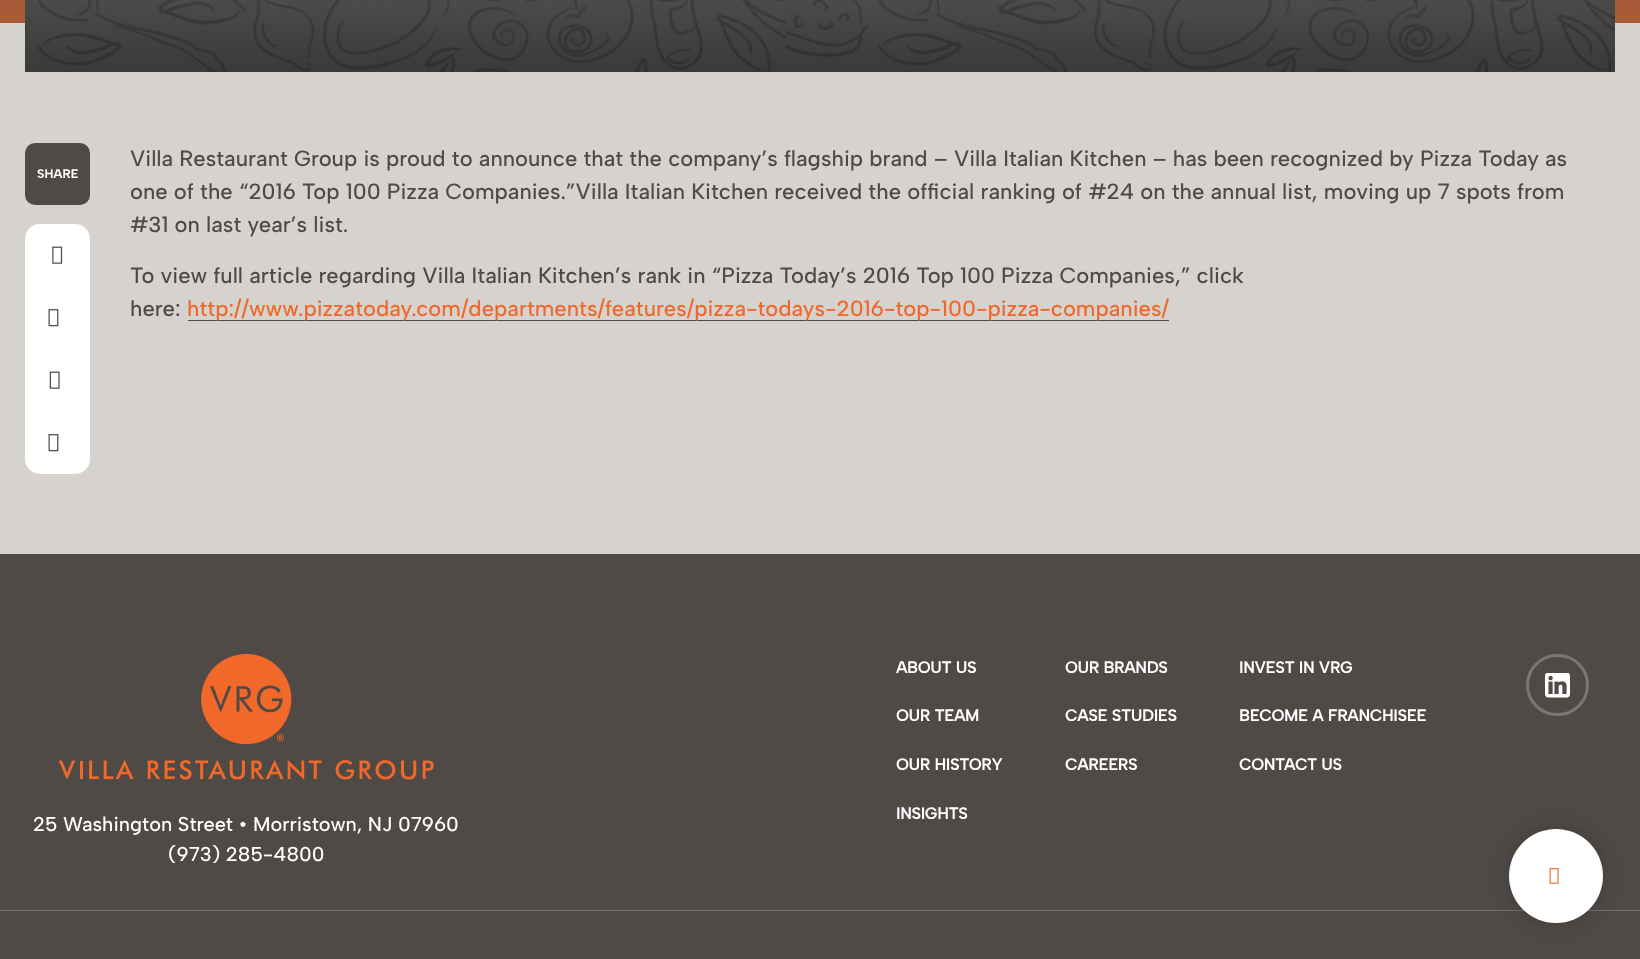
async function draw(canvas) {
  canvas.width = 1640
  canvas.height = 959
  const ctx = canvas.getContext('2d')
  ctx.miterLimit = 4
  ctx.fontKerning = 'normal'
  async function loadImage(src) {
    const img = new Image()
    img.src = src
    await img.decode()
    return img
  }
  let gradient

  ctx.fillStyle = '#504a47'
  ctx.fillRect(0, 0, 1640, 959)
  gradient = ctx.createLinearGradient(820, 248, 820, -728)
  gradient.addColorStop(0, '#f0682a')
  gradient.addColorStop(0.54, '#504a47')
  ctx.fillStyle = gradient
  ctx.fillRect(0, 0, 1640, 23)
  ctx.fillStyle = '#d6d2ce'
  ctx.fillRect(0, 23, 1640, 531)
  ctx.drawImage(await loadImage('image0.png'), 25, 0, 1590, 72)
  ctx.fillStyle = '#504a47'
  ctx.beginPath()
  ctx.roundRect(25, 143, 65, 62, 10)
  ctx.fill()
  ctx.font = 'bold 12.5px "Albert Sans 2"'
  ctx.fillStyle = '#fff'
  ctx.fillText('SHARE', 37, 178)
  ctx.beginPath()
  ctx.roundRect(25, 224, 65, 250, 15)
  ctx.fill()
  ctx.drawImage(await loadImage('image1.png'), 52, 246, 11, 18)
  ctx.drawImage(await loadImage('image2.png'), 48, 309, 11, 18)
  ctx.drawImage(await loadImage('image3.png'), 49, 371, 11, 18)
  ctx.drawImage(await loadImage('image2.png'), 48, 434, 11, 18)
  ctx.font = '500 22px Albert Sans'
  ctx.fillStyle = '#504a47'
  ctx.fillText('Villa Restaurant Group is proud to announce that the company’s flagship brand – Villa Italian Kitchen – has been recognized by Pizza Today as', 130, 166)
  ctx.fillText('one of the “2016 Top 100 Pizza Companies.”Villa Italian Kitchen received the official ranking of #24 on the annual list, moving up 7 spots from', 130, 199)
  ctx.fillText('#31 on last year’s list.', 130, 232)
  ctx.fillText('To view full article regarding Villa Italian Kitchen’s rank in “Pizza Today’s 2016 Top 100 Pizza Companies,” click', 130, 283)
  ctx.fillText('here:', 130, 316)
  ctx.fillRect(188, 320, 981, 1)
  ctx.fillStyle = '#f0682a'
  ctx.fillText('http://www.pizzatoday.com/departments/features/pizza-todays-2016-top-100-pizza-companies/', 187, 316)
  ctx.font = 'bold 16px Albert Sans'
  ctx.fillStyle = '#fff'
  ctx.fillText('ABOUT US', 896, 673)
  ctx.fillText('OUR TEAM', 896, 721)
  ctx.fillText('OUR HISTORY', 896, 770)
  ctx.fillText('INSIGHTS', 896, 819)
  ctx.fillText('OUR BRANDS', 1065, 673)
  ctx.fillText('CASE STUDIES', 1065, 721)
  ctx.fillText('CAREERS', 1065, 770)
  ctx.fillText('INVEST IN VRG', 1239, 673)
  ctx.fillText('BECOME A FRANCHISEE', 1239, 721)
  ctx.fillText('CONTACT US', 1239, 770)
  ctx.beginPath()
  ctx.roundRect(1527.5, 655.5, 60, 59, 29.5)
  ctx.strokeStyle = '#7d7570'
  ctx.lineWidth = 3
  ctx.stroke()
  ctx.drawImage(await loadImage('image4.png'), 1545, 673, 25, 25)
  ctx.drawImage(await loadImage('image5.png'), 59, 654, 375, 126)
  ctx.font = '500 20px Albert Sans'
  ctx.fillText('25 Washington Street • Morristown, NJ 07960', 33, 831)
  ctx.fillText('(973) 285-4800', 168, 861)
  ctx.fillStyle = '#6d6f71'
  ctx.fillRect(0, 910, 1640, 1)
  ctx.fillStyle = '#00000033'
  ctx.filter = 'blur(9px)'
  ctx.beginPath()
  ctx.roundRect(1509, 829, 94, 94, 47)
  ctx.fill()
  ctx.filter = 'none'
  ctx.fillStyle = '#fff'
  ctx.beginPath()
  ctx.arc(1556, 876, 47, 0, 2 * Math.PI)
  ctx.fill()
  ctx.drawImage(await loadImage('image6.png'), 1549, 868, 10, 16)
}

draw(document.querySelector('canvas'))
